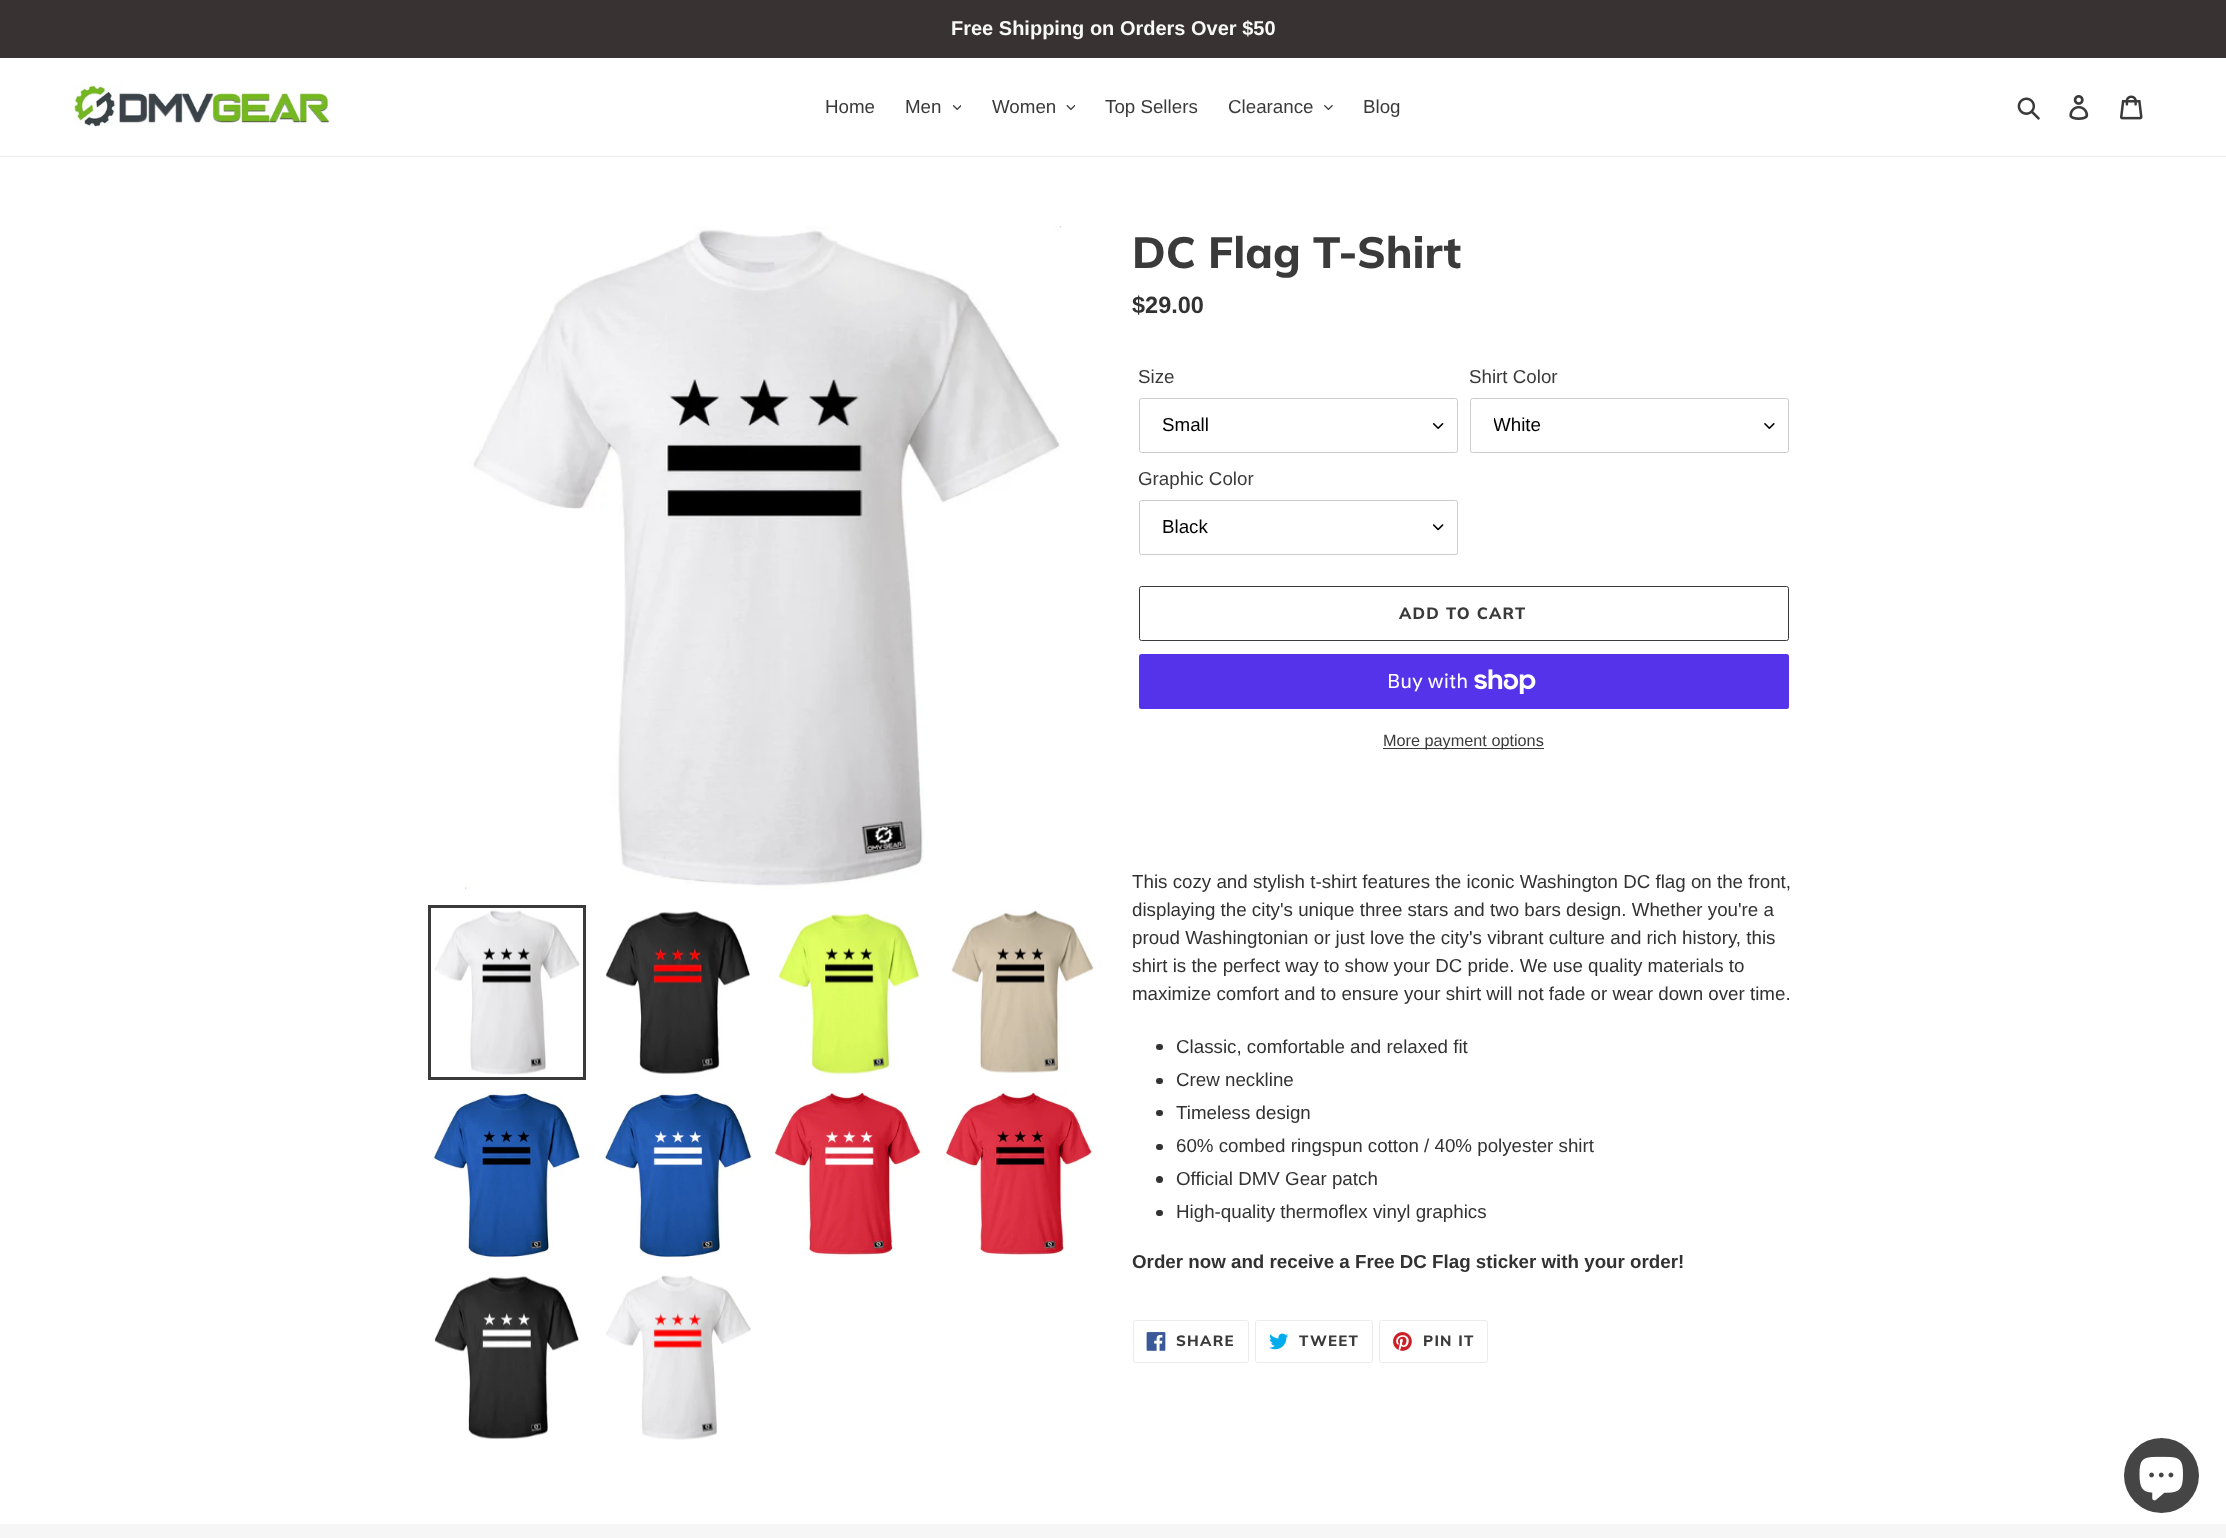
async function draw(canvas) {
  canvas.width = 2226
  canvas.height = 1538
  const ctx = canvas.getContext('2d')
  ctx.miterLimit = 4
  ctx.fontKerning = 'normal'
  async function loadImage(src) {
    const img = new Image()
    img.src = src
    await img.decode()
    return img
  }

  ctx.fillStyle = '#fff'
  ctx.fillRect(0, 0, 2226, 1538)
  ctx.fillStyle = '#383232'
  ctx.fillRect(0, 0, 2226, 58)
  ctx.font = 'bold 20px Liberation Sans'
  ctx.fillStyle = '#f8f8f8'
  ctx.fillText('Free Shipping on Orders Over $50', 951, 35)
  ctx.fillStyle = '#ebebeb'
  ctx.fillRect(0, 156, 2226, 1)
  ctx.drawImage(await loadImage('image0.png'), 74, 84, 257, 44)
  ctx.font = '18.75px Liberation Sans'
  ctx.fillStyle = '#3a3a3a'
  ctx.fillText('Home', 825, 113)
  ctx.fillText('Men', 905, 113)
  ctx.drawImage(await loadImage('image1.png'), 953, 105, 8, 5)
  ctx.fillText('Women', 992, 113)
  ctx.drawImage(await loadImage('image2.png'), 1066, 105, 9, 5)
  ctx.fillText('Top Sellers', 1105, 113)
  ctx.fillText('Clearance', 1228, 113)
  ctx.drawImage(await loadImage('image3.png'), 1324, 105, 9, 5)
  ctx.fillText('Blog', 1363, 113)
  ctx.drawImage(await loadImage('image4.png'), 2017, 97, 23, 23)
  ctx.drawImage(await loadImage('image5.png'), 2069, 95, 20, 25)
  ctx.drawImage(await loadImage('image6.png'), 2120, 95, 23, 25)
  ctx.drawImage(await loadImage('image7.png'), 465, 226, 596, 663)
  ctx.strokeStyle = '#3a3a3a'
  ctx.lineWidth = 3
  ctx.strokeRect(429.5, 906.5, 155, 172)
  ctx.drawImage(await loadImage('image8.png'), 434, 910, 146, 165)
  ctx.drawImage(await loadImage('image9.png'), 605, 911, 145, 163)
  ctx.drawImage(await loadImage('image10.png'), 778, 911, 145, 164)
  ctx.drawImage(await loadImage('image11.png'), 951, 910, 143, 163)
  ctx.drawImage(await loadImage('image12.png'), 432, 1092, 148, 166)
  ctx.drawImage(await loadImage('image13.png'), 604, 1092, 148, 166)
  ctx.drawImage(await loadImage('image14.png'), 775, 1092, 147, 165)
  ctx.drawImage(await loadImage('image15.png'), 946, 1092, 147, 164)
  ctx.drawImage(await loadImage('image16.png'), 434, 1276, 145, 163)
  ctx.drawImage(await loadImage('image17.png'), 606, 1275, 145, 165)
  ctx.font = '800 43.75px Muli'
  ctx.fillText('DC Flag T-Shirt', 1132, 268)
  ctx.font = 'bold 23.5px Liberation Sans'
  ctx.fillStyle = '#333232'
  ctx.fillText('$29.00', 1132, 313)
  ctx.font = '18.75px Liberation Sans'
  ctx.fillStyle = '#3a3a3a'
  ctx.fillText('Size', 1138, 383)
  ctx.drawImage(await loadImage('image18.png'), 1433, 423, 11, 6)
  ctx.beginPath()
  ctx.roundRect(1139.5, 398.5, 318, 54, 2)
  ctx.strokeStyle = '#ccc'
  ctx.lineWidth = 1
  ctx.stroke()
  ctx.fillStyle = '#000'
  ctx.fillText('Small', 1162, 431)
  ctx.fillStyle = '#3a3a3a'
  ctx.fillText('Shirt Color', 1469, 383)
  ctx.drawImage(await loadImage('image19.png'), 1764, 423, 11, 6)
  ctx.beginPath()
  ctx.roundRect(1470.5, 398.5, 318, 54, 2)
  ctx.stroke()
  ctx.save()
  ctx.beginPath()
  ctx.rect(1494, 414, 259, 22)
  ctx.clip()
  ctx.fillStyle = '#000'
  ctx.fillText('White', 1493, 431)
  ctx.restore()
  ctx.fillText('Graphic Color', 1138, 485)
  ctx.drawImage(await loadImage('image20.png'), 1433, 524, 11, 7)
  ctx.beginPath()
  ctx.roundRect(1139.5, 500.5, 318, 54, 2)
  ctx.stroke()
  ctx.fillStyle = '#000'
  ctx.fillText('Black', 1162, 533)
  ctx.beginPath()
  ctx.roundRect(1139.5, 586.5, 649, 54, 2)
  ctx.strokeStyle = '#3a3a3a'
  ctx.stroke()
  ctx.letterSpacing = '1.25px'
  ctx.font = '800 16.25px Muli'
  ctx.fillStyle = '#3a3a3a'
  ctx.fillText('ADD TO CART', 1399, 619)
  ctx.fillStyle = '#5433eb'
  ctx.beginPath()
  ctx.roundRect(1139, 654, 650, 55, 2.5)
  ctx.fill()
  ctx.letterSpacing = '0px'
  ctx.font = '20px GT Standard'
  ctx.fillStyle = '#fff'
  ctx.fillText('Buy with', 1387, 688)
  ctx.drawImage(await loadImage('image21.png'), 1474, 669, 62, 25)
  ctx.fillStyle = '#3a3a3a'
  ctx.fillRect(1383, 748, 161, 1)
  ctx.font = '16.25px Liberation Sans'
  ctx.fillText('More payment options', 1383, 746)
  ctx.font = '18.75px Liberation Sans'
  ctx.fillStyle = '#333232'
  ctx.fillText('This cozy and stylish t-shirt features the iconic Washington DC flag on the front,', 1132, 888)
  ctx.fillText('displaying the city\'s unique three stars and two bars design. Whether you\'re a', 1132, 916)
  ctx.fillText('proud Washingtonian or just love the city\'s vibrant culture and rich history, this', 1132, 944)
  ctx.fillText('shirt is the perfect way to show your DC pride. We use quality materials to', 1132, 972)
  ctx.fillText('maximize comfort and to ensure your shirt will not fade or wear down over time.', 1132, 1000)
  ctx.beginPath()
  ctx.roundRect(1156, 1044, 7, 6, 3)
  ctx.fill()
  ctx.fillText('Classic, comfortable and relaxed fit', 1176, 1053)
  ctx.beginPath()
  ctx.roundRect(1156, 1078, 7, 6, 3)
  ctx.fill()
  ctx.fillText('Crew neckline', 1176, 1086)
  ctx.beginPath()
  ctx.roundRect(1156, 1110, 7, 6, 3)
  ctx.fill()
  ctx.fillText('Timeless design', 1176, 1119)
  ctx.beginPath()
  ctx.roundRect(1156, 1144, 7, 6, 3)
  ctx.fill()
  ctx.fillText('60% combed ringspun cotton / 40% polyester shirt', 1176, 1152)
  ctx.beginPath()
  ctx.arc(1159.5, 1179.5, 3.5, 0, 2 * Math.PI)
  ctx.fill()
  ctx.fillText('Official DMV Gear patch', 1176, 1185)
  ctx.beginPath()
  ctx.roundRect(1156, 1210, 7, 6, 3)
  ctx.fill()
  ctx.fillText('High-quality thermoflex vinyl graphics', 1176, 1218)
  ctx.font = 'bold 18.75px Liberation Sans'
  ctx.fillText('Order now and receive a Free DC Flag sticker with your order!', 1132, 1268)
  ctx.beginPath()
  ctx.roundRect(1133.5, 1320.5, 115, 42, 2)
  ctx.strokeStyle = '#ebebeb'
  ctx.stroke()
  ctx.drawImage(await loadImage('image22.png'), 1146, 1332, 20, 19)
  ctx.letterSpacing = '1.25px'
  ctx.font = '800 15px Muli'
  ctx.fillStyle = '#3a3a3a'
  ctx.fillText('SHARE', 1176, 1346)
  ctx.beginPath()
  ctx.roundRect(1255.5, 1320.5, 117, 42, 2)
  ctx.stroke()
  ctx.drawImage(await loadImage('image23.png'), 1269, 1333, 20, 17)
  ctx.fillText('TWEET', 1299, 1346)
  ctx.beginPath()
  ctx.roundRect(1379.5, 1320.5, 108, 42, 2)
  ctx.stroke()
  ctx.drawImage(await loadImage('image24.png'), 1393, 1332, 19, 19)
  ctx.fillText('PIN IT', 1423, 1346)
  ctx.fillStyle = '#f6f6f6'
  ctx.fillRect(0, 1524, 2226, 14)
  ctx.fillStyle = '#454545'
  ctx.beginPath()
  ctx.arc(2161.5, 1475.5, 37.5, 0, 2 * Math.PI)
  ctx.fill()
  ctx.drawImage(await loadImage('image25.png'), 2139, 1456, 44, 45)
}

draw(document.querySelector('canvas'))
